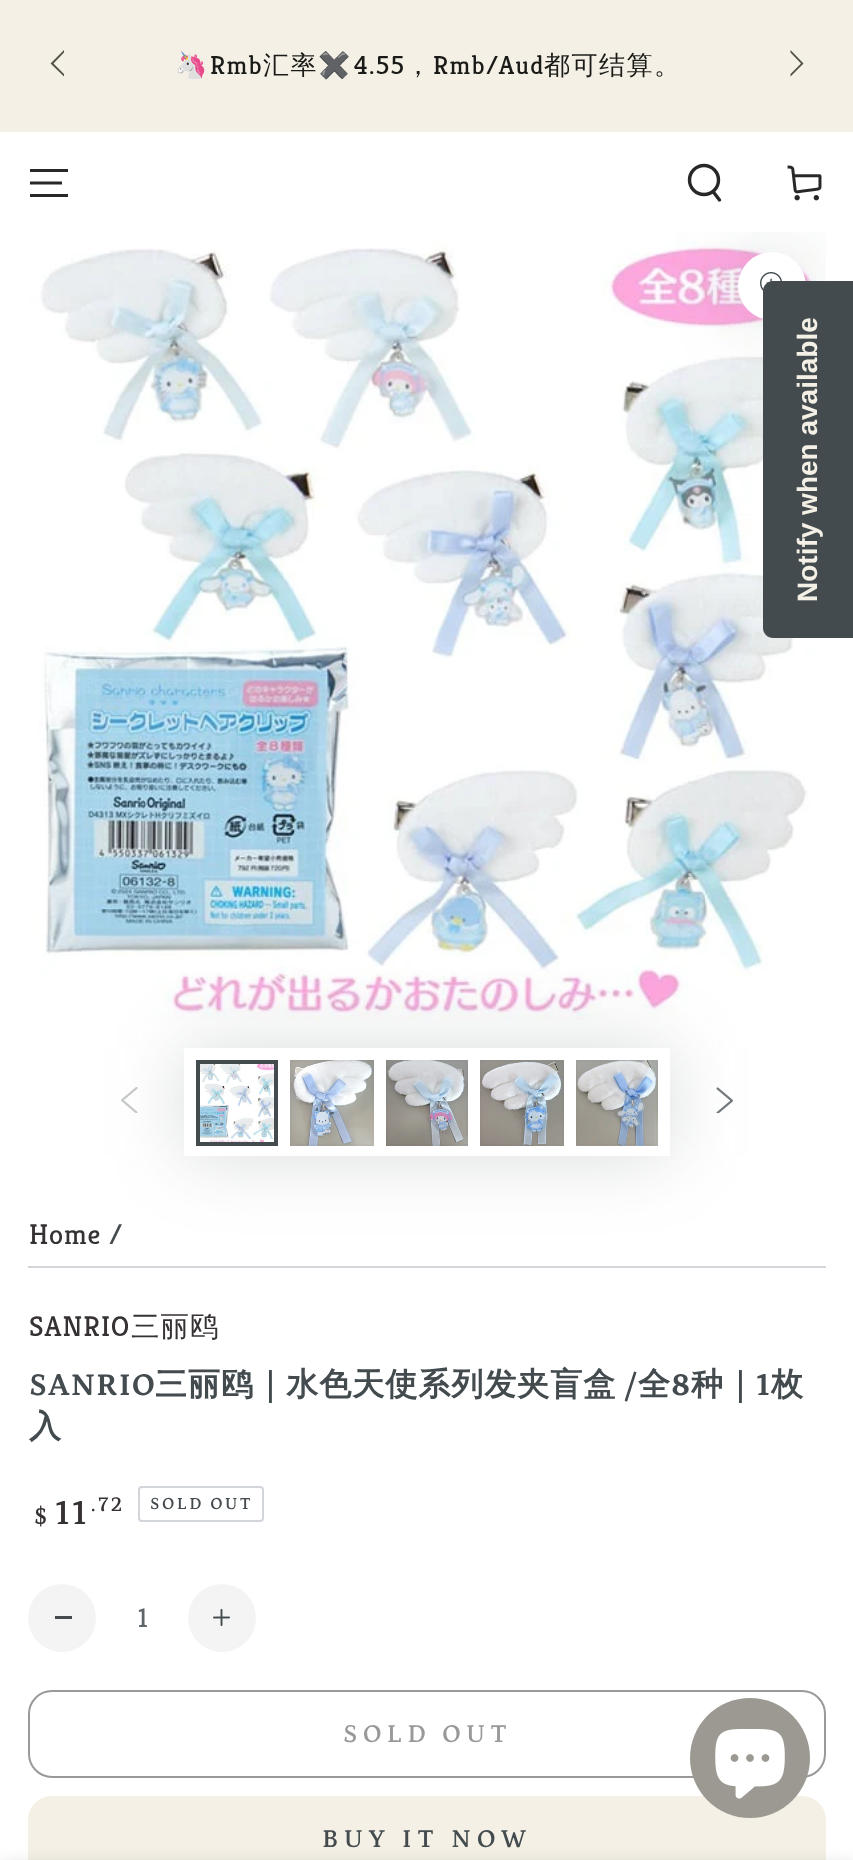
async function draw(canvas) {
  canvas.width = 853
  canvas.height = 1860
  const ctx = canvas.getContext('2d')
  ctx.miterLimit = 4
  ctx.fontKerning = 'normal'
  async function loadImage(src) {
    const img = new Image()
    img.src = src
    await img.decode()
    return img
  }

  ctx.fillStyle = '#fff'
  ctx.fillRect(0, 0, 853, 1860)
  ctx.fillStyle = '#f4f0e5'
  ctx.fillRect(0, 0, 853, 132)
  ctx.fillStyle = '#51504b'
  ctx.beginPath()
  ctx.moveTo(50.5, 63.5)
  ctx.lineTo(64, 76.5)
  ctx.lineTo(64, 74)
  ctx.lineTo(53.5, 63.5)
  ctx.lineTo(64, 52.5)
  ctx.lineTo(64, 50)
  ctx.closePath()
  ctx.fill('evenodd')
  ctx.beginPath()
  ctx.moveTo(803.5, 63.5)
  ctx.lineTo(790.5, 76.5)
  ctx.lineTo(790.5, 74)
  ctx.lineTo(801, 63.5)
  ctx.lineTo(790.5, 52.5)
  ctx.lineTo(790.5, 50)
  ctx.closePath()
  ctx.fill('evenodd')
  ctx.letterSpacing = '1.5px'
  ctx.font = '26px Noto Color Emoji'
  ctx.fillStyle = '#1a1b18'
  ctx.fillText('🦄️', 175, 74)
  ctx.font = '26px Kreon'
  ctx.fillText('Rmb', 210, 74)
  ctx.font = '500 26px WenQuanYi Zen Hei'
  ctx.fillText('汇率', 263, 74)
  ctx.font = '26px Noto Color Emoji'
  ctx.fillText('✖️', 318, 74)
  ctx.font = '26px Kreon'
  ctx.fillText('4.55', 354, 74)
  ctx.font = '500 26px WenQuanYi Zen Hei'
  ctx.fillText('，', 405, 74)
  ctx.font = '26px Kreon'
  ctx.fillText('Rmb/Aud', 433, 74)
  ctx.font = '500 26px WenQuanYi Zen Hei'
  ctx.fillText('都可结算。', 544, 74)
  ctx.beginPath()
  ctx.moveTo(30, 195.5)
  ctx.lineTo(68, 195.5)
  ctx.moveTo(30, 183)
  ctx.lineTo(62, 183)
  ctx.moveTo(30, 170.5)
  ctx.lineTo(68, 170.5)
  ctx.strokeStyle = '#282828'
  ctx.lineWidth = 3.1
  ctx.stroke()
  ctx.drawImage(await loadImage('image2.png'), 28, 232, 798, 798)
  ctx.save()
  ctx.beginPath()
  ctx.rect(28, 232, 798, 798)
  ctx.clip()
  ctx.fillStyle = '#434b4f33'
  ctx.filter = 'blur(38px)'
  ctx.beginPath()
  ctx.roundRect(738, 252, 68, 68, 34)
  ctx.fill()
  ctx.filter = 'none'
  ctx.restore()
  ctx.beginPath()
  ctx.arc(704, 180, 14.5, 0, 2 * Math.PI)
  ctx.lineWidth = 3.4
  ctx.stroke()
  ctx.beginPath()
  ctx.moveTo(713, 191.5)
  ctx.lineTo(719.5, 200)
  ctx.lineCap = 'round'
  ctx.stroke()
  ctx.drawImage(await loadImage('image0.png'), 787, 165, 35, 36)
  ctx.fillStyle = '#fff'
  ctx.beginPath()
  ctx.arc(772, 286, 34, 0, 2 * Math.PI)
  ctx.fill()
  ctx.drawImage(await loadImage('image1.png'), 760, 272, 22, 19)
  ctx.fillStyle = '#d2d5d9'
  ctx.fillRect(28, 1266, 798, 2)
  ctx.save()
  ctx.beginPath()
  ctx.moveTo(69, 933)
  ctx.lineTo(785, 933)
  ctx.lineTo(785, 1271)
  ctx.lineTo(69, 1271)
  ctx.closePath()
  ctx.moveTo(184, 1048)
  ctx.lineTo(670, 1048)
  ctx.lineTo(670, 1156)
  ctx.lineTo(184, 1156)
  ctx.closePath()
  ctx.clip('evenodd')
  ctx.fillStyle = '#434b4f33'
  ctx.filter = 'blur(38px)'
  ctx.beginPath()
  ctx.rect(184, 1048, 486, 108)
  ctx.fill()
  ctx.filter = 'none'
  ctx.restore()
  ctx.drawImage(await loadImage('image3.png'), 200, 1064, 74, 78)
  ctx.strokeStyle = '#434b4f'
  ctx.lineWidth = 4
  ctx.strokeRect(198, 1062, 78, 82)
  ctx.drawImage(await loadImage('image4.png'), 290, 1060, 84, 86)
  ctx.strokeStyle = '#434b4f0a'
  ctx.lineWidth = 2
  ctx.strokeRect(291, 1061, 82, 84)
  ctx.drawImage(await loadImage('image5.png'), 386, 1060, 82, 86)
  ctx.strokeRect(387, 1061, 80, 84)
  ctx.drawImage(await loadImage('image6.png'), 480, 1060, 84, 86)
  ctx.strokeRect(481, 1061, 82, 84)
  ctx.drawImage(await loadImage('image7.png'), 576, 1060, 82, 86)
  ctx.strokeRect(577, 1061, 80, 84)
  ctx.drawImage(await loadImage('image8.png'), 121, 1087, 17, 26)
  ctx.drawImage(await loadImage('image9.png'), 716, 1087, 17, 27)
  ctx.letterSpacing = '1px'
  ctx.font = '28.5px Kreon'
  ctx.fillStyle = '#363132'
  ctx.fillText('Home', 29, 1244)
  ctx.fillStyle = '#434b4f'
  ctx.fillText('/', 109, 1244)
  ctx.fillStyle = '#363132'
  ctx.fillText('SANRIO', 29, 1336)
  ctx.font = '500 28.5px WenQuanYi Zen Hei'
  ctx.fillText('三丽鸥', 131, 1336)
  ctx.font = 'bold 32px Petrona'
  ctx.fillStyle = '#434b4f'
  ctx.fillText('SANRIO', 29, 1395)
  ctx.font = 'bold 32px WenQuanYi Zen Hei'
  ctx.fillText('三丽鸥｜水色天使系列发夹盲盒', 155, 1395)
  ctx.font = 'bold 32px Petrona'
  ctx.fillText('/', 624, 1395)
  ctx.font = 'bold 32px WenQuanYi Zen Hei'
  ctx.fillText('全', 638, 1395)
  ctx.font = 'bold 32px Petrona'
  ctx.fillText('8', 671, 1395)
  ctx.font = 'bold 32px WenQuanYi Zen Hei'
  ctx.fillText('种｜', 691, 1395)
  ctx.font = 'bold 32px Petrona'
  ctx.fillText('1', 756, 1395)
  ctx.font = 'bold 32px WenQuanYi Zen Hei'
  ctx.fillText('枚', 771, 1395)
  ctx.fillText('入', 29, 1437)
  ctx.letterSpacing = '2.5px'
  ctx.font = '600 25px Petrona'
  ctx.fillStyle = '#363132'
  ctx.fillText('$', 34, 1524)
  ctx.font = '600 35px Petrona'
  ctx.fillText('11', 55, 1524)
  ctx.font = '600 21px Petrona'
  ctx.fillText('.72', 91, 1511)
  ctx.beginPath()
  ctx.roundRect(139, 1487, 124, 34, 3)
  ctx.strokeStyle = '#d2d5d9'
  ctx.stroke()
  ctx.font = '600 17px Petrona'
  ctx.fillStyle = '#434b4f'
  ctx.fillText('SOLD OUT', 150, 1509)
  ctx.fillStyle = '#f4f4f4'
  ctx.beginPath()
  ctx.arc(62, 1618, 34, 0, 2 * Math.PI)
  ctx.fill()
  ctx.fillStyle = '#434b4f'
  ctx.fillRect(55, 1616, 17, 3)
  ctx.letterSpacing = '0px'
  ctx.font = '27px Kreon'
  ctx.fillStyle = '#5f6669'
  ctx.fillText('1', 138, 1627)
  ctx.fillStyle = '#f4f4f4'
  ctx.beginPath()
  ctx.arc(222, 1618, 34, 0, 2 * Math.PI)
  ctx.fill()
  ctx.drawImage(await loadImage('image10.png'), 213, 1609, 17, 17)
  ctx.beginPath()
  ctx.roundRect(29, 1691, 796, 86, 23)
  ctx.strokeStyle = '#9b9899'
  ctx.stroke()
  ctx.letterSpacing = '5.25px'
  ctx.font = '600 26px Petrona'
  ctx.fillStyle = '#9b9899'
  ctx.fillText('SOLD OUT', 343, 1742)
  ctx.fillStyle = '#f4f0e5'
  ctx.beginPath()
  ctx.roundRect(29, 1797, 796, 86, 23)
  ctx.fill()
  ctx.strokeStyle = '#f4f0e5'
  ctx.stroke()
  ctx.letterSpacing = '5.75px'
  ctx.fillStyle = '#434b4f'
  ctx.fillText('BUY IT NOW', 322, 1847)
  ctx.beginPath()
  ctx.moveTo(763, 628)
  ctx.lineTo(763, 291)
  ctx.bezierCurveTo(763, 285, 768, 281, 773, 281)
  ctx.lineTo(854, 281)
  ctx.lineTo(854, 638)
  ctx.lineTo(773, 638)
  ctx.bezierCurveTo(768, 638, 763, 634, 763, 628)
  ctx.closePath()
  ctx.fill()
  ctx.letterSpacing = '0px'
  ctx.font = 'bold 28px Liberation Sans'
  ctx.fillStyle = '#f4f0e5'
  ctx.save()
  ctx.translate(817, 602)
  ctx.rotate(-90 * Math.PI / 180)
  ctx.fillText('Notify when available', 0, 0)
  ctx.restore()
  ctx.fillStyle = '#9b9992'
  ctx.beginPath()
  ctx.arc(750, 1758, 60, 0, 2 * Math.PI)
  ctx.fill()
  ctx.drawImage(await loadImage('image11.png'), 715, 1729, 70, 70)
  ctx.fillStyle = '#434b4f26'
  ctx.filter = 'blur(7.5px)'
  ctx.beginPath()
  ctx.rect(0, 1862, 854, 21)
  ctx.fill()
  ctx.filter = 'none'
}

draw(document.querySelector('canvas'))
